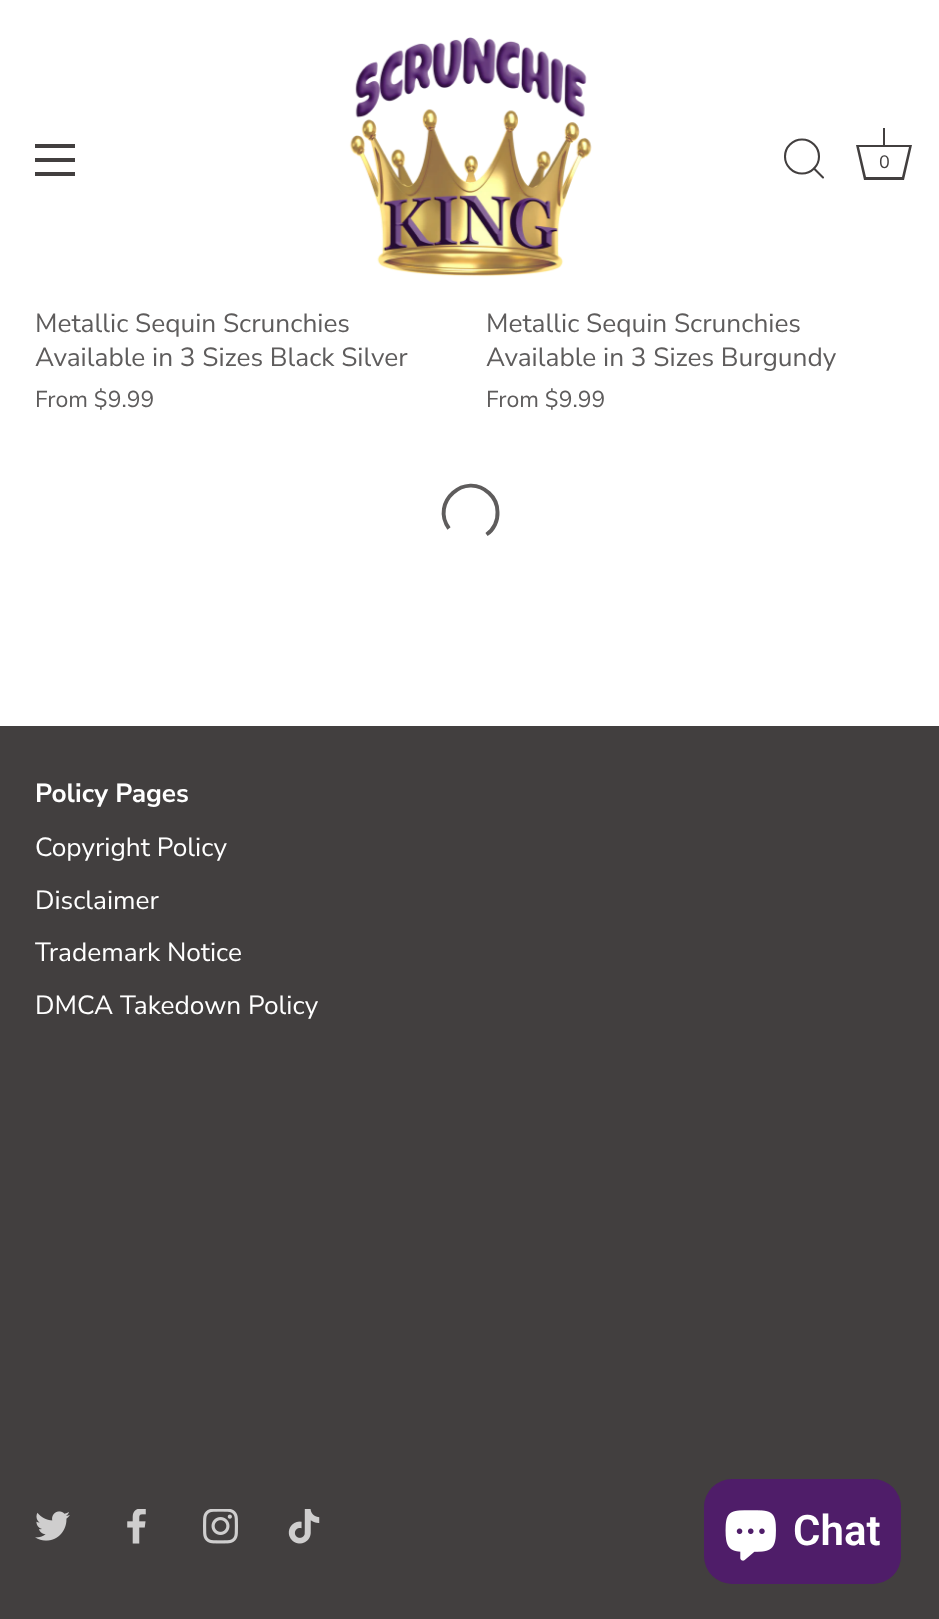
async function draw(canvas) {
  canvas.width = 939
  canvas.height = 1619
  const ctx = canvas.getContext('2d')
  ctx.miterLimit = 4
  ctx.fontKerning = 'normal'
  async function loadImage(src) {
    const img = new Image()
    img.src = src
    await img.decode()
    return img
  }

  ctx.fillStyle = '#fff'
  ctx.fillRect(0, 0, 939, 1619)
  ctx.fillStyle = '#423f3f'
  ctx.fillRect(35, 144, 40, 4)
  ctx.fillRect(35, 158, 40, 4)
  ctx.fillRect(35, 172, 40, 4)
  ctx.drawImage(await loadImage('image0.png'), 349, 37, 243, 240)
  ctx.beginPath()
  ctx.arc(802, 156.5, 17, 0, 2 * Math.PI)
  ctx.strokeStyle = '#423f3f'
  ctx.lineWidth = 2.1
  ctx.stroke()
  ctx.beginPath()
  ctx.moveTo(823, 177.5)
  ctx.lineTo(814, 168.5)
  ctx.lineCap = 'round'
  ctx.lineJoin = 'round'
  ctx.stroke()
  ctx.fillRect(883, 128, 2, 17)
  ctx.beginPath()
  ctx.moveTo(909, 147)
  ctx.lineTo(902, 177)
  ctx.lineTo(866, 177)
  ctx.lineTo(859, 147)
  ctx.lineTo(909, 147)
  ctx.moveTo(912, 145)
  ctx.lineTo(856, 145)
  ctx.lineTo(864, 180)
  ctx.lineTo(904, 180)
  ctx.closePath()
  ctx.fill()
  ctx.font = '18px Nunito Sans'
  ctx.fillText('0', 879, 168)
  ctx.font = '26.25px Nunito Sans'
  ctx.fillStyle = '#5e5c5c'
  ctx.fillText('Metallic Sequin Scrunchies', 35, 332)
  ctx.fillText('Available in 3 Sizes Black Silver', 35, 366)
  ctx.font = '23px Nunito Sans'
  ctx.fillText('From $9.99', 35, 407)
  ctx.font = '26.25px Nunito Sans'
  ctx.fillText('Metallic Sequin Scrunchies', 486, 332)
  ctx.fillText('Available in 3 Sizes Burgundy', 486, 366)
  ctx.font = '23px Nunito Sans'
  ctx.fillText('From $9.99', 486, 407)
  ctx.beginPath()
  ctx.moveTo(449, 528.5)
  ctx.bezierCurveTo(430, 502.5, 465.5, 471, 489, 493)
  ctx.bezierCurveTo(494, 497.5, 497.5, 504.5, 497.5, 512)
  ctx.bezierCurveTo(498, 520.5, 494, 529.5, 486.5, 534.5)
  ctx.strokeStyle = '#5e5c5c'
  ctx.lineWidth = 3.9
  ctx.lineCap = 'butt'
  ctx.lineJoin = 'miter'
  ctx.stroke()
  ctx.fillStyle = '#423f3f'
  ctx.fillRect(0, 726, 939, 893)
  ctx.font = 'bold 26.25px Nunito Sans'
  ctx.fillStyle = '#fff'
  ctx.fillText('Policy Pages', 35, 802)
  ctx.font = '26.25px Nunito Sans'
  ctx.fillText('Copyright Policy', 35, 856)
  ctx.fillText('Disclaimer', 35, 909)
  ctx.fillText('Trademark Notice', 35, 961)
  ctx.fillText('DMCA Takedown Policy', 35, 1014)
  ctx.drawImage(await loadImage('image1.png'), 35, 1511, 35, 30)
  ctx.drawImage(await loadImage('image2.png'), 127, 1509, 19, 35)
  ctx.drawImage(await loadImage('image3.png'), 203, 1509, 35, 35)
  ctx.drawImage(await loadImage('image4.png'), 288, 1509, 32, 35)
  ctx.fillStyle = '#4f1d69'
  ctx.beginPath()
  ctx.roundRect(704, 1479, 197, 105, 28)
  ctx.fill()
  ctx.drawImage(await loadImage('image5.png'), 725, 1510, 51, 51)
  ctx.font = '600 42px Roboto'
  ctx.fillStyle = '#fff'
  ctx.fillText('Chat', 793, 1545)
}

draw(document.querySelector('canvas'))
